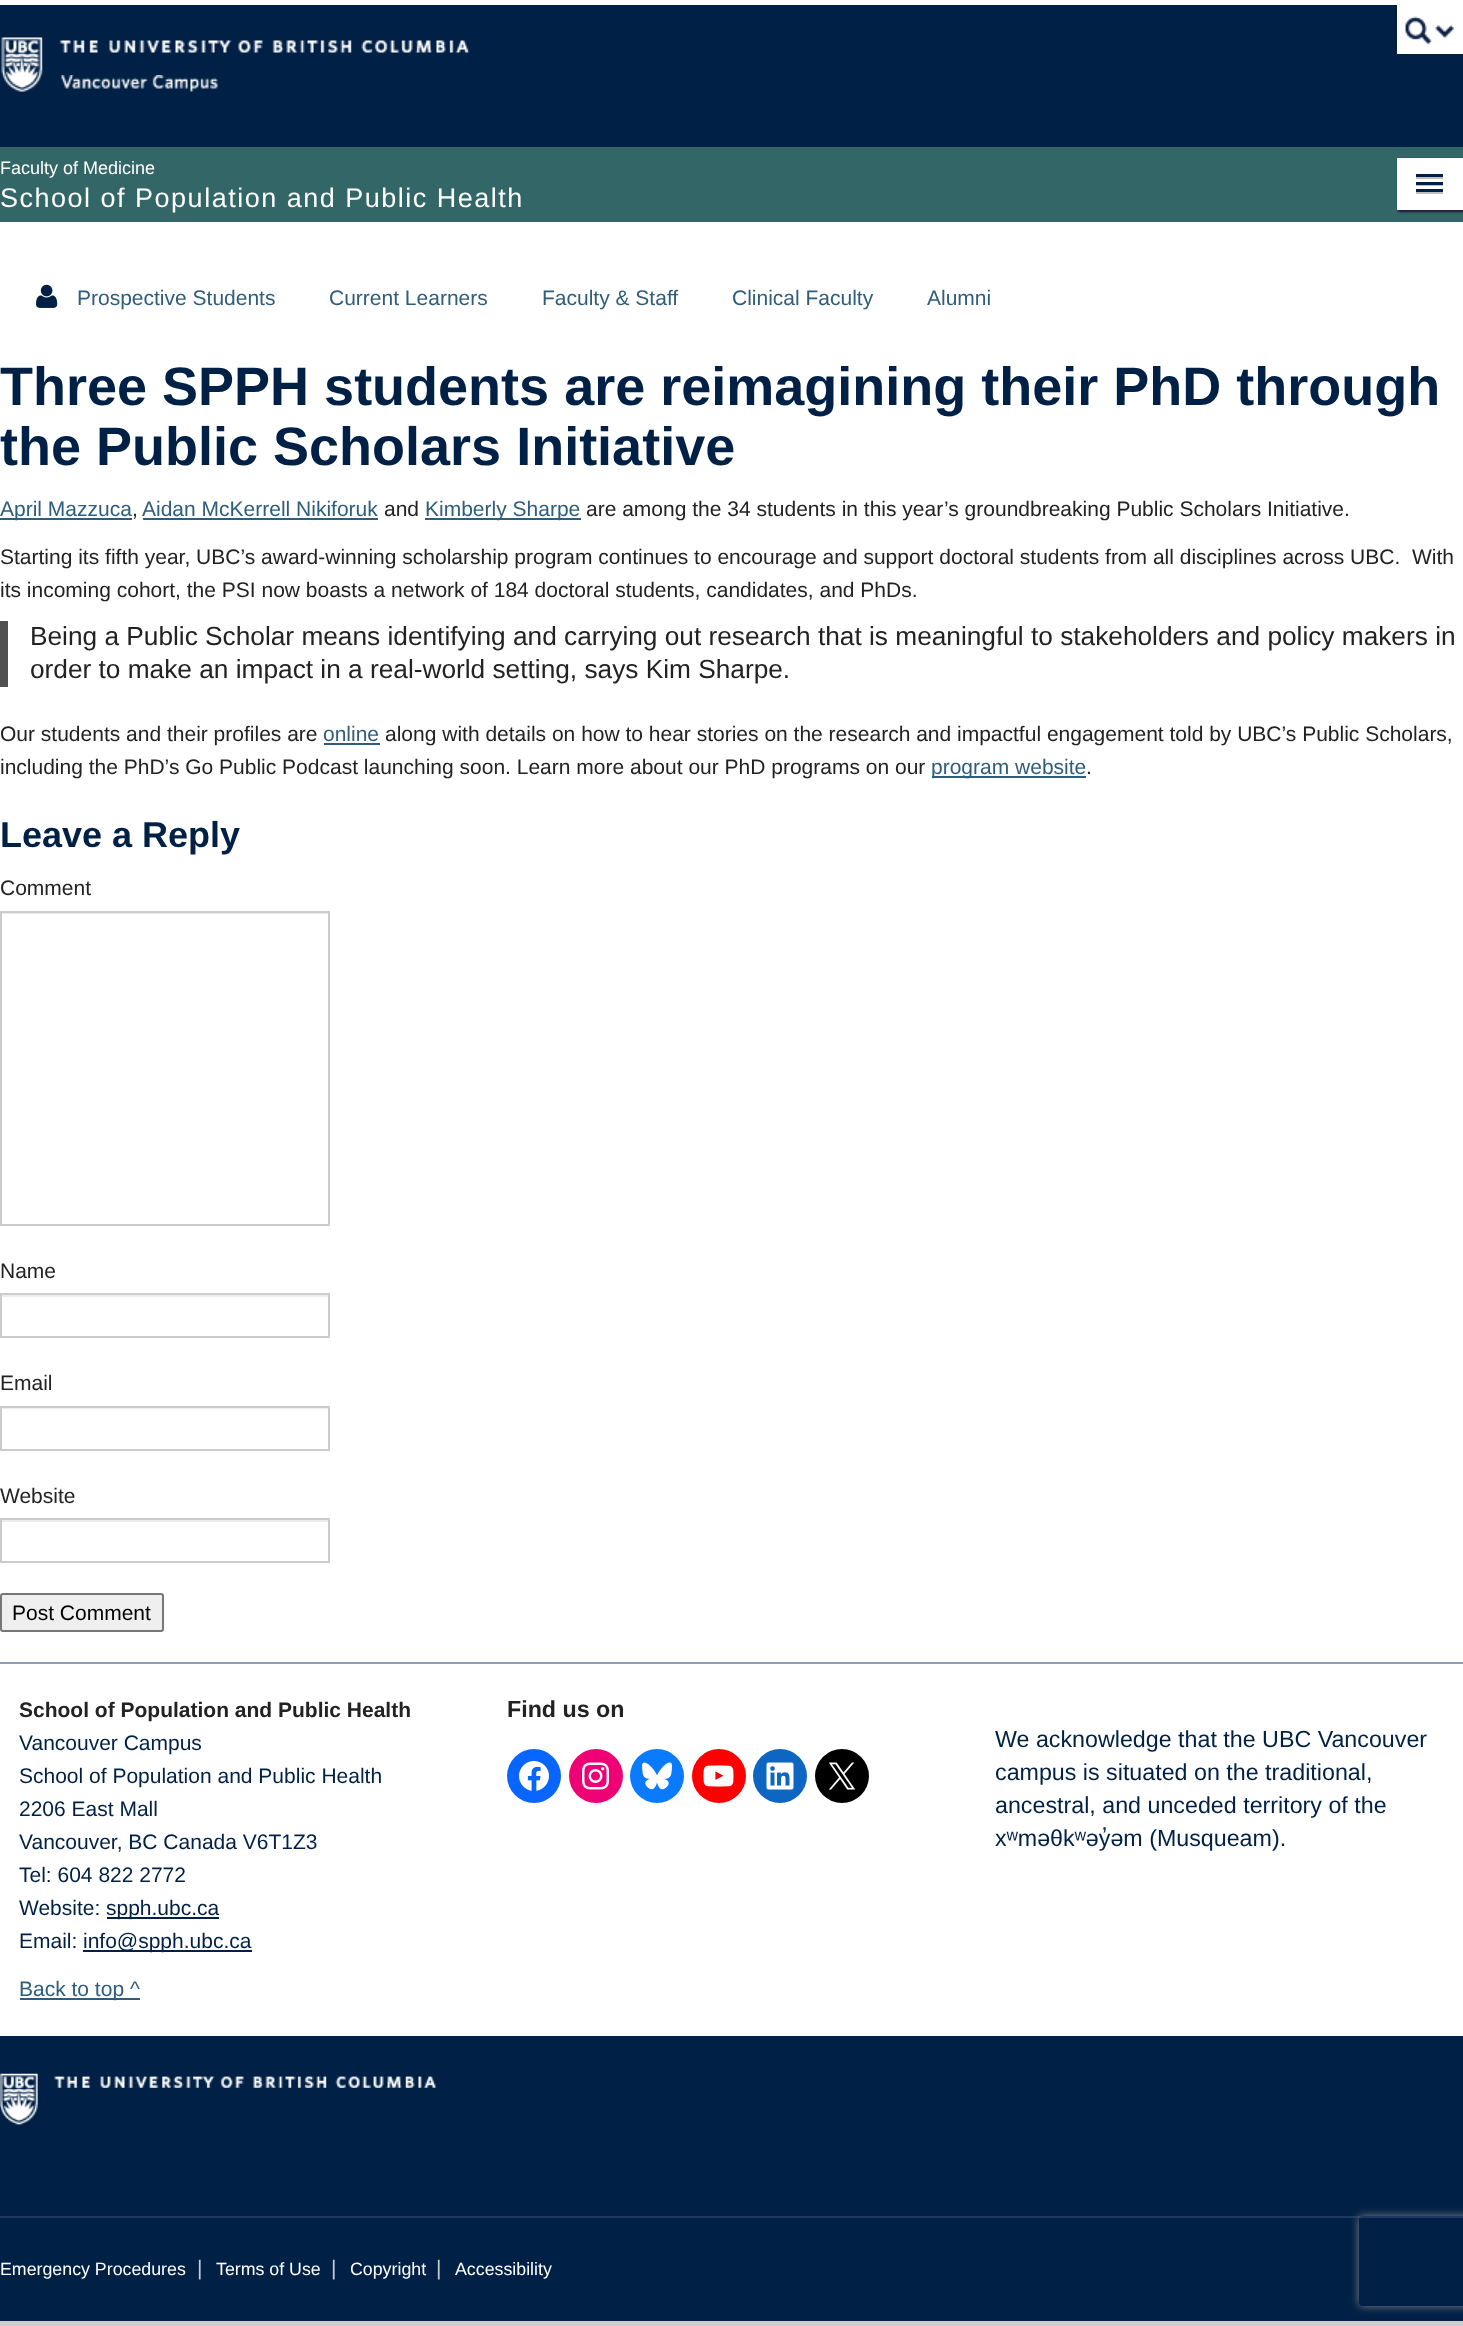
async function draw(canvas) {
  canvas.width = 1463
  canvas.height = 2326
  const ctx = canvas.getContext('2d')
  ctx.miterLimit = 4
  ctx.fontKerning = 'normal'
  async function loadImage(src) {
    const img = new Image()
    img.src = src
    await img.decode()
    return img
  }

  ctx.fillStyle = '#ccc'
  ctx.fillRect(0, 0, 1463, 2326)
  ctx.fillStyle = '#002145'
  ctx.fillRect(0, 5, 1463, 142)
  ctx.fillStyle = '#fff'
  ctx.fillRect(0, 0, 1463, 5)
  ctx.drawImage(await loadImage('image0.png'), 1, 37, 469, 55)
  ctx.fillRect(1397, 5, 66, 49)
  ctx.drawImage(await loadImage('image1.png'), 1405, 16, 49, 29)
  ctx.drawImage(await loadImage('image2.png'), 61, 75, 157, 17)
  ctx.fillStyle = '#366'
  ctx.fillRect(0, 147, 1463, 75)
  ctx.font = '18px Liberation Sans'
  ctx.fillStyle = '#fff'
  ctx.fillText('Faculty of Medicine', 0, 174)
  ctx.letterSpacing = '1.5px'
  ctx.font = '27px Liberation Sans'
  ctx.fillText('School of Population and Public Health', 0, 207)
  ctx.fillStyle = '#191938'
  ctx.filter = 'blur(1px)'
  ctx.beginPath()
  ctx.rect(1398, 159, 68, 53)
  ctx.fill()
  ctx.filter = 'none'
  ctx.fillStyle = '#fff'
  ctx.fillRect(1397, 158, 66, 52)
  ctx.fillStyle = '#bfbfbf'
  ctx.fillRect(1416, 177, 27, 2)
  ctx.fillStyle = '#002145'
  ctx.fillRect(1416, 174, 27, 3)
  ctx.fillStyle = '#bfbfbf'
  ctx.fillRect(1416, 185, 27, 1)
  ctx.fillStyle = '#002145'
  ctx.fillRect(1416, 182, 27, 3)
  ctx.fillStyle = '#bfbfbf'
  ctx.fillRect(1416, 192, 27, 2)
  ctx.fillStyle = '#002145'
  ctx.fillRect(1416, 189, 27, 3)
  ctx.fillStyle = '#fff'
  ctx.fillRect(0, 222, 1463, 1440)
  ctx.drawImage(await loadImage('image3.png'), 36, 284, 22, 24)
  ctx.letterSpacing = '0px'
  ctx.font = '21px Liberation Sans'
  ctx.fillStyle = '#2f5d7c'
  ctx.fillText('Prospective Students', 77, 305)
  ctx.fillText('Current Learners', 329, 305)
  ctx.fillText('Faculty & Staff', 542, 305)
  ctx.fillText('Clinical Faculty', 732, 305)
  ctx.fillText('Alumni', 927, 305)
  ctx.font = 'bold 54px Liberation Sans'
  ctx.fillStyle = '#002145'
  ctx.fillText('Three SPPH students are reimagining their PhD through', 0, 405)
  ctx.fillText('the Public Scholars Initiative', 0, 465)
  ctx.fillStyle = '#2f5d7c'
  ctx.fillRect(0, 518, 132, 2)
  ctx.font = '21px Liberation Sans'
  ctx.fillText('April Mazzuca', 0, 516)
  ctx.fillStyle = '#222'
  ctx.fillText(',', 132, 516)
  ctx.fillStyle = '#2f5d7c'
  ctx.fillText('Aidan McKerrell Nikiforuk', 142, 516)
  ctx.fillRect(143, 518, 235, 2)
  ctx.fillStyle = '#222'
  ctx.fillText('and', 384, 516)
  ctx.fillStyle = '#2f5d7c'
  ctx.fillRect(425, 518, 156, 2)
  ctx.fillText('Kimberly Sharpe', 425, 516)
  ctx.fillStyle = '#222'
  ctx.fillText('are among the 34 students in this year’s groundbreaking Public Scholars Initiative.', 586, 516)
  ctx.fillText('Starting its fifth year, UBC’s award-winning scholarship program continues to encourage and support doctoral students from all disciplines across UBC.  With', 0, 564)
  ctx.fillText('its incoming cohort, the PSI now boasts a network of 184 doctoral students, candidates, and PhDs.', 0, 597)
  ctx.fillStyle = '#505050'
  ctx.fillRect(0, 621, 8, 66)
  ctx.font = '26.25px Liberation Sans'
  ctx.fillStyle = '#222'
  ctx.fillText('Being a Public Scholar means identifying and carrying out research that is meaningful to stakeholders and policy makers in', 30, 645)
  ctx.fillText('order to make an impact in a real-world setting, says Kim Sharpe.', 30, 678)
  ctx.font = '21px Liberation Sans'
  ctx.fillText('Our students and their profiles are', 0, 741)
  ctx.fillStyle = '#2f5d7c'
  ctx.fillText('online', 323, 741)
  ctx.fillRect(324, 743, 56, 2)
  ctx.fillStyle = '#222'
  ctx.fillText('along with details on how to hear stories on the research and impactful engagement told by UBC’s Public Scholars,', 385, 741)
  ctx.fillText('including the PhD’s Go Public Podcast launching soon. Learn more about our PhD programs on our', 0, 774)
  ctx.fillStyle = '#2f5d7c'
  ctx.fillRect(932, 776, 154, 2)
  ctx.fillText('program website', 931, 774)
  ctx.fillStyle = '#222'
  ctx.fillText('.', 1086, 774)
  ctx.font = 'bold 36px Liberation Sans'
  ctx.fillStyle = '#002145'
  ctx.fillText('Leave a Reply', 0, 847)
  ctx.font = '21px Liberation Sans'
  ctx.fillStyle = '#222'
  ctx.fillText('Comment', 0, 895)
  ctx.fillStyle = '#ececec'
  ctx.fillRect(2, 913, 327, 1)
  ctx.strokeStyle = '#ccc'
  ctx.lineWidth = 2
  ctx.strokeRect(1, 912, 328, 313)
  ctx.fillStyle = '#222'
  ctx.fillText('Name', 0, 1278)
  ctx.fillStyle = '#ececec'
  ctx.fillRect(2, 1295, 327, 2)
  ctx.strokeRect(1, 1294, 328, 43)
  ctx.fillStyle = '#222'
  ctx.fillText('Email', 0, 1390)
  ctx.fillStyle = '#ececec'
  ctx.fillRect(2, 1408, 327, 1)
  ctx.strokeRect(1, 1407, 328, 43)
  ctx.fillStyle = '#222'
  ctx.fillText('Website', 0, 1503)
  ctx.fillStyle = '#ececec'
  ctx.fillRect(2, 1520, 327, 2)
  ctx.strokeRect(1, 1519, 328, 43)
  ctx.fillStyle = '#efefef'
  ctx.beginPath()
  ctx.roundRect(1, 1594, 162, 37, 2)
  ctx.fill()
  ctx.strokeStyle = '#767676'
  ctx.stroke()
  ctx.fillStyle = '#000'
  ctx.fillText('Post Comment', 12, 1620)
  ctx.fillStyle = '#fff'
  ctx.fillRect(0, 1664, 1463, 372)
  ctx.fillStyle = '#91a0af'
  ctx.fillRect(0, 1662, 1463, 2)
  ctx.font = 'bold 21px Liberation Sans'
  ctx.fillStyle = '#222'
  ctx.fillText('School of Population and Public Health', 19, 1717)
  ctx.font = '21px Liberation Sans'
  ctx.fillStyle = '#002145'
  ctx.fillText('Vancouver Campus', 19, 1750)
  ctx.fillText('School of Population and Public Health', 19, 1783)
  ctx.fillText('2206 East Mall', 19, 1816)
  ctx.fillText('Vancouver, BC Canada V6T1Z3', 19, 1849)
  ctx.fillText('Tel: 604 822 2772', 19, 1882)
  ctx.fillText('Website:', 19, 1915)
  ctx.fillRect(107, 1917, 112, 2)
  ctx.fillText('spph.ubc.ca', 106, 1915)
  ctx.fillText('Email:', 19, 1948)
  ctx.fillRect(83, 1950, 169, 2)
  ctx.fillText('info@spph.ubc.ca', 83, 1948)
  ctx.fillStyle = '#2f5d7c'
  ctx.fillRect(20, 1998, 120, 2)
  ctx.fillText('Back to top ^', 19, 1996)
  ctx.font = 'bold 23.25px Liberation Sans'
  ctx.fillStyle = '#222'
  ctx.fillText('Find us on', 507, 1717)
  ctx.fillStyle = '#0866ff'
  ctx.beginPath()
  ctx.arc(534, 1776, 27, 0, 2 * Math.PI)
  ctx.fill()
  ctx.drawImage(await loadImage('image4.png'), 519, 1761, 30, 30)
  ctx.fillStyle = '#f00075'
  ctx.beginPath()
  ctx.arc(596, 1776, 27, 0, 2 * Math.PI)
  ctx.fill()
  ctx.drawImage(await loadImage('image5.png'), 582, 1762, 27, 28)
  ctx.fillStyle = '#0a7aff'
  ctx.beginPath()
  ctx.arc(657, 1776, 27, 0, 2 * Math.PI)
  ctx.fill()
  ctx.drawImage(await loadImage('image6.png'), 642, 1762, 30, 28)
  ctx.fillStyle = '#f00'
  ctx.beginPath()
  ctx.arc(719, 1776, 27, 0, 2 * Math.PI)
  ctx.fill()
  ctx.drawImage(await loadImage('image7.png'), 703, 1765, 31, 22)
  ctx.fillStyle = '#0d66c2'
  ctx.beginPath()
  ctx.arc(780, 1776, 27, 0, 2 * Math.PI)
  ctx.fill()
  ctx.drawImage(await loadImage('image8.png'), 766, 1762, 28, 28)
  ctx.fillStyle = '#000'
  ctx.beginPath()
  ctx.arc(842, 1776, 27, 0, 2 * Math.PI)
  ctx.fill()
  ctx.drawImage(await loadImage('image9.png'), 828, 1762, 28, 28)
  ctx.font = '23.25px Liberation Sans'
  ctx.fillStyle = '#002145'
  ctx.fillText('We acknowledge that the UBC Vancouver', 995, 1747)
  ctx.fillText('campus is situated on the traditional,', 995, 1780)
  ctx.fillText('ancestral, and unceded territory of the', 995, 1813)
  ctx.fillText('xʷməθkʷəy̓əm (Musqueam).', 995, 1846)
  ctx.fillRect(0, 2036, 1463, 285)
  ctx.drawImage(await loadImage('image10.png'), 0, 2073, 437, 52)
  ctx.fillStyle = '#1f385f'
  ctx.fillRect(0, 2216, 1463, 2)
  ctx.font = '17.8px Liberation Sans'
  ctx.fillStyle = '#fff'
  ctx.fillText('Emergency Procedures', 0, 2275)
  ctx.font = '21px Liberation Sans'
  ctx.fillStyle = '#ccc'
  ctx.fillText('|', 197, 2275)
  ctx.font = '17.8px Liberation Sans'
  ctx.fillStyle = '#fff'
  ctx.fillText('Terms of Use', 216, 2275)
  ctx.font = '21px Liberation Sans'
  ctx.fillStyle = '#ccc'
  ctx.fillText('|', 331, 2275)
  ctx.font = '17.8px Liberation Sans'
  ctx.fillStyle = '#fff'
  ctx.fillText('Copyright', 350, 2275)
  ctx.font = '21px Liberation Sans'
  ctx.fillStyle = '#ccc'
  ctx.fillText('|', 436, 2275)
  ctx.font = '17.8px Liberation Sans'
  ctx.fillStyle = '#fff'
  ctx.fillText('Accessibility', 455, 2275)
  ctx.save()
  ctx.beginPath()
  ctx.moveTo(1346, 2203)
  ctx.lineTo(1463, 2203)
  ctx.lineTo(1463, 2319)
  ctx.lineTo(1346, 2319)
  ctx.closePath()
  ctx.moveTo(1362, 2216)
  ctx.lineTo(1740, 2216)
  ctx.bezierCurveTo(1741.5, 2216, 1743, 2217.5, 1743, 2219)
  ctx.lineTo(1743, 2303)
  ctx.bezierCurveTo(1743, 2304.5, 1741.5, 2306, 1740, 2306)
  ctx.lineTo(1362, 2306)
  ctx.bezierCurveTo(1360.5, 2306, 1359, 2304.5, 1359, 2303)
  ctx.lineTo(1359, 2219)
  ctx.bezierCurveTo(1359, 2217.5, 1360.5, 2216, 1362, 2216)
  ctx.closePath()
  ctx.clip('evenodd')
  ctx.fillStyle = '#808080'
  ctx.filter = 'blur(4px)'
  ctx.beginPath()
  ctx.roundRect(1359, 2216, 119, 90, 3)
  ctx.fill()
  ctx.filter = 'none'
  ctx.restore()
}

draw(document.querySelector('canvas'))
